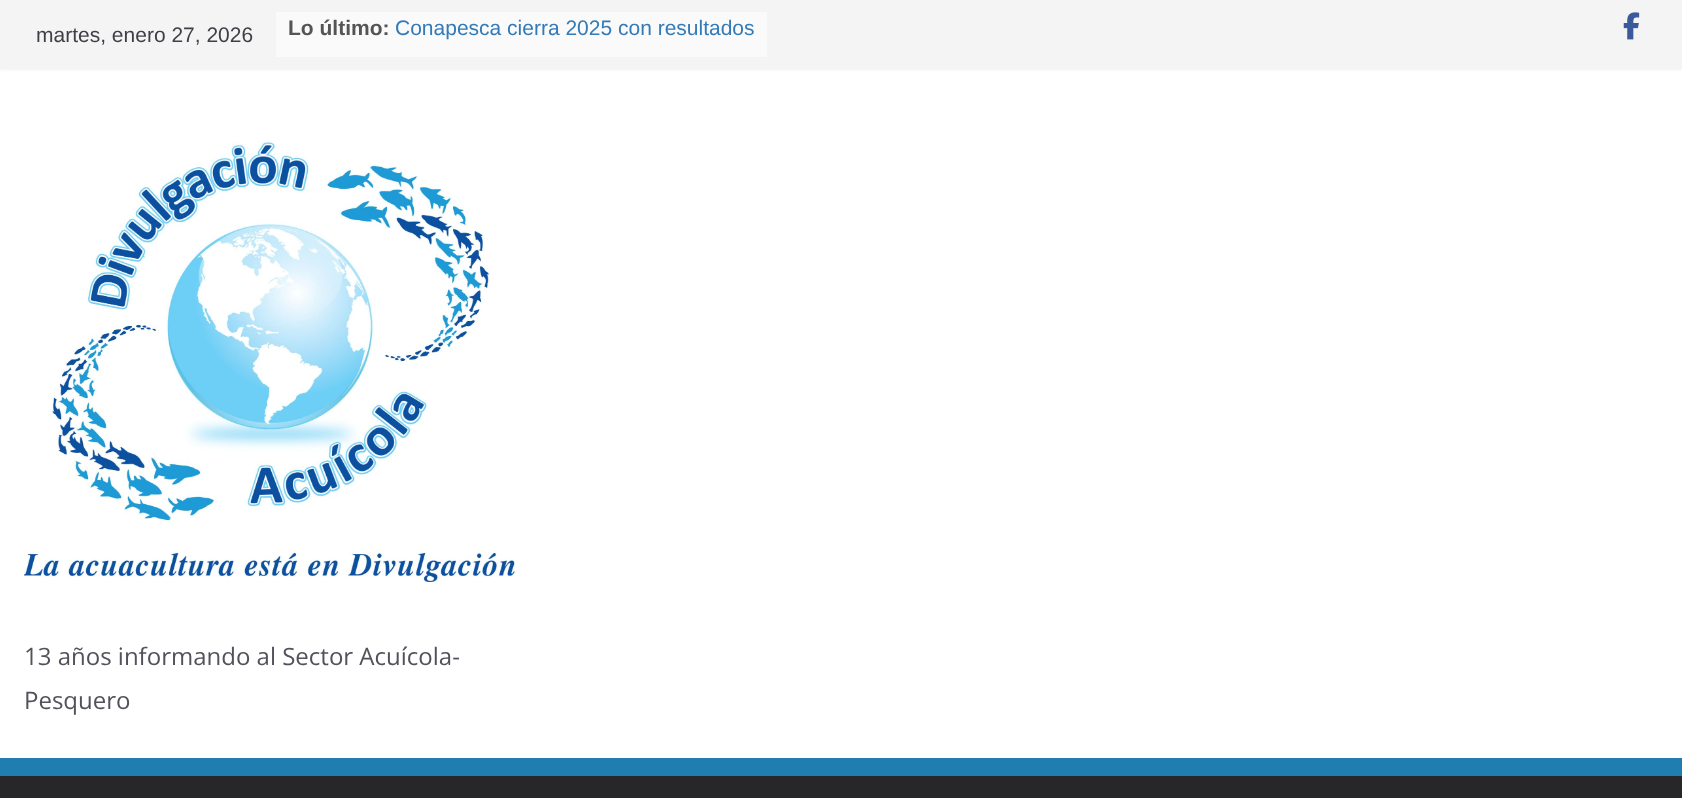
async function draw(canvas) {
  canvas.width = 1682
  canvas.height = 798
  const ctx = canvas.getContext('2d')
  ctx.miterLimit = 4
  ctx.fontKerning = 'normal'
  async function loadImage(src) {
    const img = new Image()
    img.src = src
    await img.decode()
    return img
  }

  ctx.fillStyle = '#fff'
  ctx.fillRect(0, 0, 1682, 798)
  ctx.fillStyle = '#0000001a'
  ctx.filter = 'blur(1.5px)'
  ctx.beginPath()
  ctx.rect(0, 0, 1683, 69)
  ctx.fill()
  ctx.filter = 'none'
  ctx.fillStyle = '#f4f4f5'
  ctx.fillRect(0, 0, 1682, 69)
  ctx.font = '21px Liberation Sans'
  ctx.fillStyle = '#3f3f46'
  ctx.fillText('martes, enero 27, 2026', 36, 42)
  ctx.fillStyle = '#fafafa'
  ctx.fillRect(276, 12, 491, 45)
  ctx.font = 'bold 21px Liberation Sans'
  ctx.fillStyle = '#555'
  ctx.fillText('Lo último:', 288, 35)
  ctx.font = '21px Liberation Sans'
  ctx.fillStyle = '#337ab7'
  ctx.fillText('Conapesca cierra 2025 con resultados', 395, 35)
  ctx.drawImage(await loadImage('image0.png'), 1623, 12, 17, 28)
  ctx.drawImage(await loadImage('image1.png'), 24, 141, 491, 441)
  ctx.font = '24px Open Sans'
  ctx.fillStyle = '#52525b'
  ctx.fillText('13 años informando al Sector Acuícola-', 24, 665)
  ctx.fillText('Pesquero', 24, 709)
  ctx.fillStyle = '#27272a'
  ctx.fillRect(0, 776, 1682, 22)
  ctx.fillStyle = '#207daf'
  ctx.fillRect(0, 758, 1682, 18)
}

draw(document.querySelector('canvas'))
